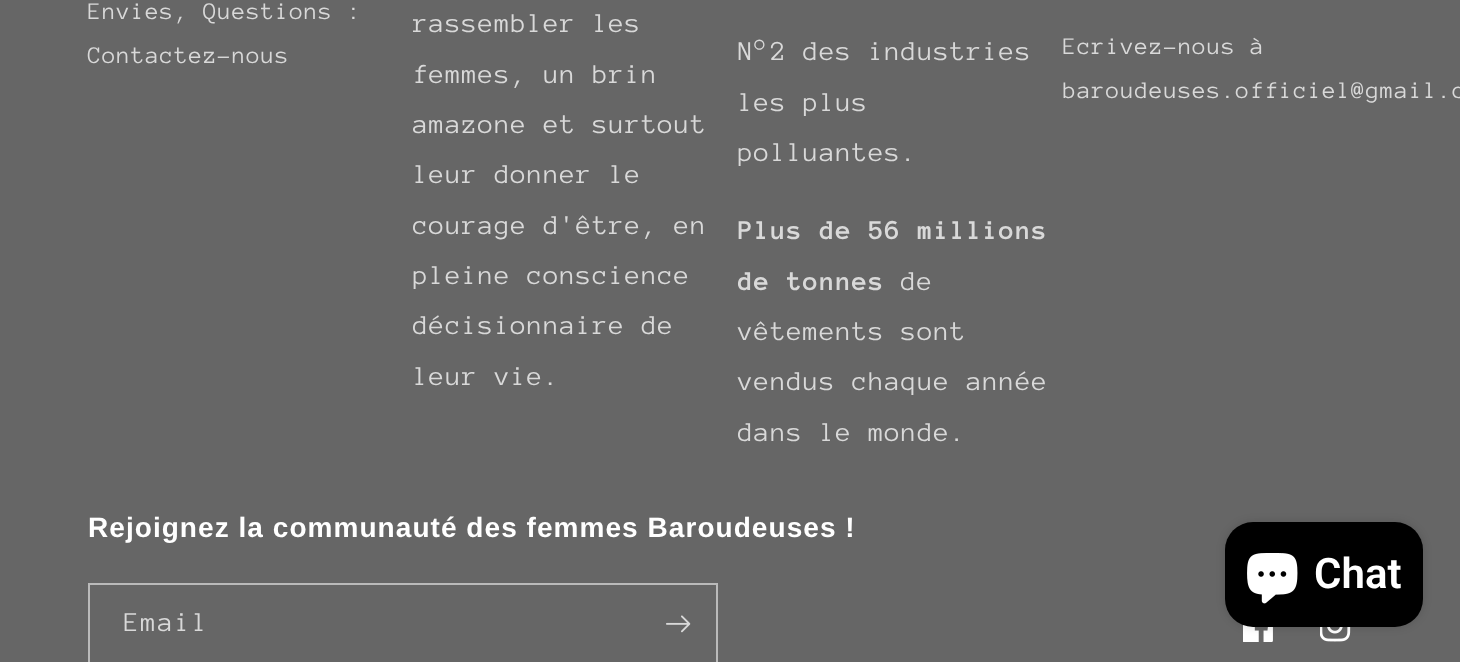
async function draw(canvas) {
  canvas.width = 1460
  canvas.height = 662
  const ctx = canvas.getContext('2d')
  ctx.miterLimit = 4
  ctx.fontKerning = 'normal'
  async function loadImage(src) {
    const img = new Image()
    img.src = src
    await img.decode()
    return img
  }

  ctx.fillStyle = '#666'
  ctx.fillRect(0, 0, 1460, 662)
  ctx.letterSpacing = '1.05px'
  ctx.font = '24.5px Anonymous Pro'
  ctx.fillStyle = '#d9d9d9'
  ctx.fillText('Envies, Questions :', 88, 19)
  ctx.fillText('Contactez-nous', 88, 63)
  ctx.font = '28px Anonymous Pro'
  ctx.fillText('rassembler les', 413, 32)
  ctx.fillText('femmes, un brin', 413, 83)
  ctx.fillText('amazone et surtout', 413, 133)
  ctx.fillText('leur donner le', 413, 183)
  ctx.fillText('courage d\'être, en', 413, 234)
  ctx.fillText('pleine conscience', 413, 284)
  ctx.fillText('décisionnaire de', 413, 334)
  ctx.fillText('leur vie.', 413, 385)
  ctx.fillText('N°2 des industries', 738, 60)
  ctx.fillText('les plus', 738, 111)
  ctx.fillText('polluantes.', 738, 161)
  ctx.font = 'bold 28px Anonymous Pro'
  ctx.fillText('Plus de 56 millions', 738, 239)
  ctx.fillText('de tonnes', 738, 290)
  ctx.font = '28px Anonymous Pro'
  ctx.fillText('de', 901, 290)
  ctx.fillText('vêtements sont', 738, 340)
  ctx.fillText('vendus chaque année', 738, 390)
  ctx.fillText('dans le monde.', 738, 441)
  ctx.font = '24.5px Anonymous Pro'
  ctx.fillText('Ecrivez-nous à', 1063, 54)
  ctx.fillText('baroudeuses.officiel@gmail.c', 1063, 98)
  ctx.font = 'bold 28px Liberation Sans'
  ctx.fillStyle = '#fff'
  ctx.fillText('Rejoignez la communauté des femmes Baroudeuses !', 88, 537)
  ctx.strokeStyle = '#bababa'
  ctx.lineWidth = 2
  ctx.strokeRect(89, 584, 628, 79)
  ctx.letterSpacing = '1.75px'
  ctx.font = '28px Anonymous Pro'
  ctx.fillStyle = '#d9d9d9'
  ctx.fillText('Email', 124, 631)
  ctx.drawImage(await loadImage('image0.png'), 666, 615, 25, 18)
  ctx.drawImage(await loadImage('image1.png'), 1243, 625, 30, 17)
  ctx.drawImage(await loadImage('image2.png'), 1320, 627, 31, 15)
  ctx.fillStyle = '#00000026'
  ctx.filter = 'blur(4.5px)'
  ctx.beginPath()
  ctx.roundRect(1225, 522, 198, 105, 28)
  ctx.fill()
  ctx.filter = 'none'
  ctx.fillStyle = '#000'
  ctx.beginPath()
  ctx.roundRect(1225, 522, 198, 105, 28)
  ctx.fill()
  ctx.drawImage(await loadImage('image3.png'), 1247, 553, 51, 51)
  ctx.letterSpacing = '0px'
  ctx.font = '600 42px Roboto'
  ctx.fillStyle = '#fff'
  ctx.fillText('Chat', 1314, 588)
}

draw(document.querySelector('canvas'))
